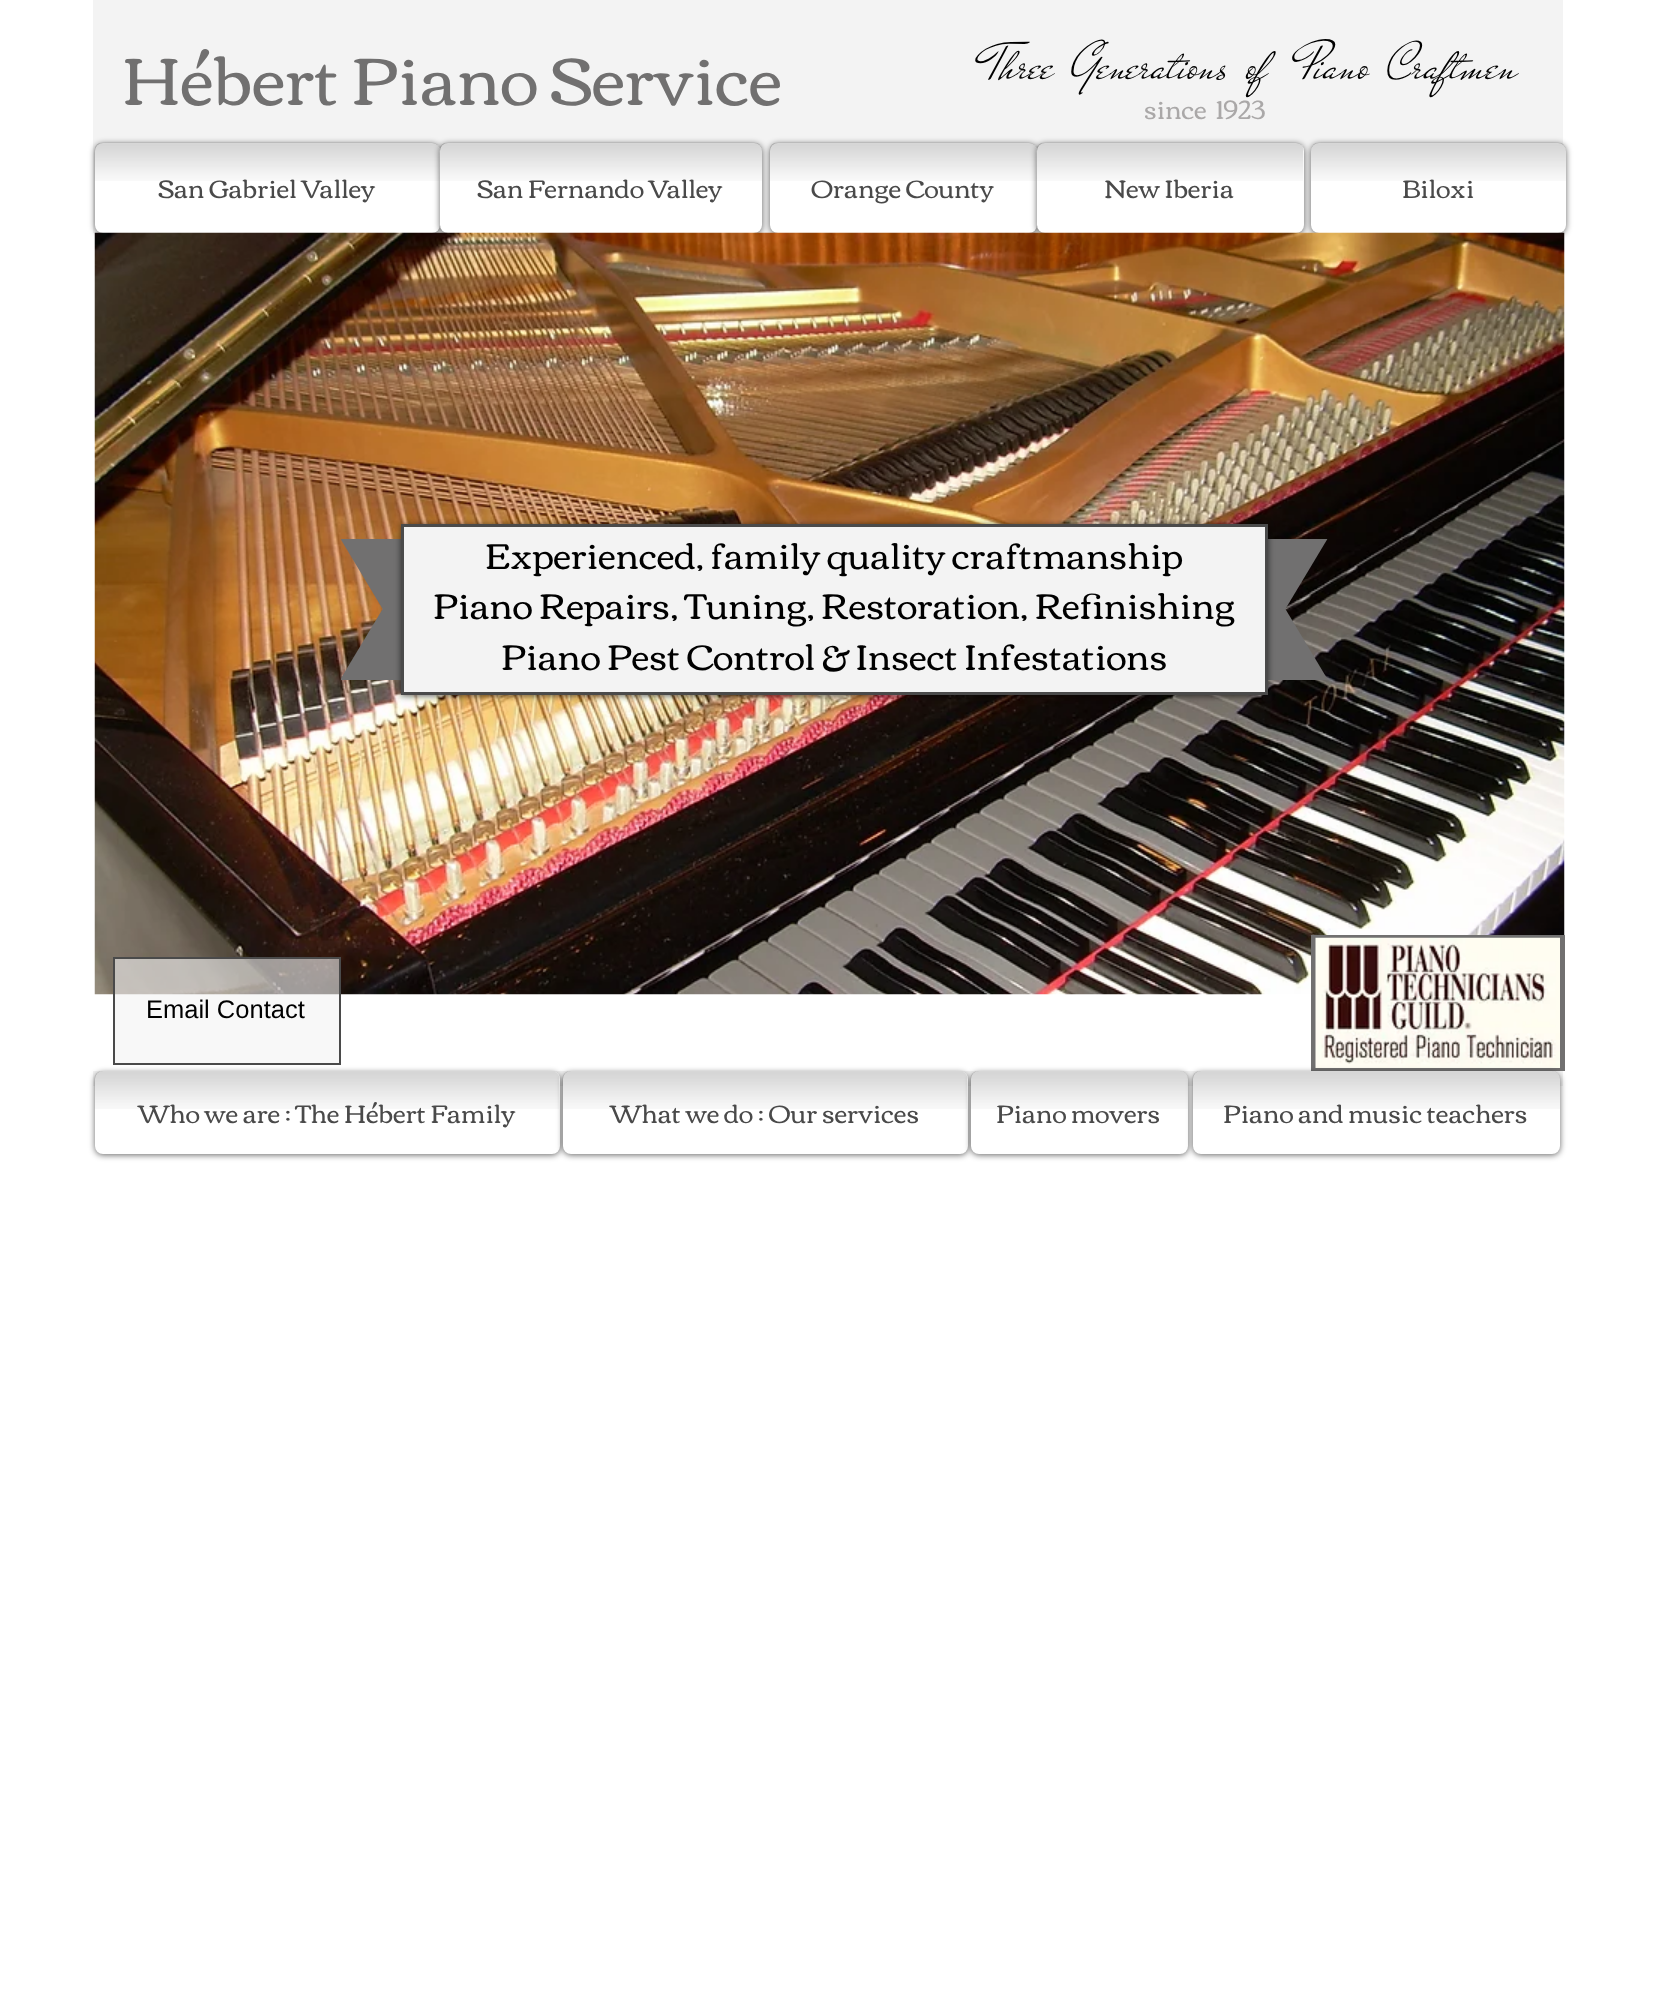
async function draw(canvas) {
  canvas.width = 1654
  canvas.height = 1993
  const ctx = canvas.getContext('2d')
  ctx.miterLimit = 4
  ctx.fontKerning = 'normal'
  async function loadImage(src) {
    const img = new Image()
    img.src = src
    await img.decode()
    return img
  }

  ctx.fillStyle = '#fff'
  ctx.fillRect(0, 0, 1654, 1993)
  ctx.fillStyle = '#f3f3f3'
  ctx.fillRect(93, 0, 1470, 233)
  ctx.font = '67.5px Corben'
  ctx.fillStyle = '#717070'
  ctx.fillText('Hébert Piano Service', 122, 105)
  ctx.font = '52.5px Mr De Haviland'
  ctx.fillStyle = '#000'
  ctx.fillText('Three  Generations  of   Piano  Craftmen', 986, 78)
  ctx.font = '25.5px Corben'
  ctx.fillStyle = '#aaa8a8'
  ctx.fillText('since  1923', 1144, 119)
  ctx.fillStyle = '#00000099'
  ctx.filter = 'blur(3px)'
  ctx.beginPath()
  ctx.roundRect(95, 144, 345, 90, 8)
  ctx.fill()
  ctx.filter = 'none'
  ctx.fillStyle = '#fff'
  ctx.beginPath()
  ctx.roundRect(95, 143, 345, 90, 8)
  ctx.fill()
  ctx.drawImage(await loadImage('image0.png'), 94, 142, 346, 39)
  ctx.fillStyle = '#4a4a4a'
  ctx.fillText('San Gabriel Valley', 158, 198)
  ctx.fillStyle = '#00000099'
  ctx.filter = 'blur(3px)'
  ctx.beginPath()
  ctx.roundRect(440, 144, 322, 90, 8)
  ctx.fill()
  ctx.filter = 'none'
  ctx.fillStyle = '#fff'
  ctx.beginPath()
  ctx.roundRect(440, 143, 322, 90, 8)
  ctx.fill()
  ctx.drawImage(await loadImage('image1.png'), 439, 142, 323, 39)
  ctx.drawImage(await loadImage('image2.png'), 440, 227, 1, 2)
  ctx.fillStyle = '#4a4a4a'
  ctx.fillText('San Fernando Valley', 477, 198)
  ctx.fillStyle = '#00000099'
  ctx.filter = 'blur(3px)'
  ctx.beginPath()
  ctx.roundRect(770, 144, 267, 90, 8)
  ctx.fill()
  ctx.filter = 'none'
  ctx.fillStyle = '#fff'
  ctx.beginPath()
  ctx.roundRect(770, 143, 267, 90, 8)
  ctx.fill()
  ctx.drawImage(await loadImage('image3.png'), 769, 142, 268, 39)
  ctx.fillStyle = '#4a4a4a'
  ctx.fillText('Orange County', 811, 198)
  ctx.fillStyle = '#00000099'
  ctx.filter = 'blur(3px)'
  ctx.beginPath()
  ctx.roundRect(1037, 144, 267, 90, 8)
  ctx.fill()
  ctx.filter = 'none'
  ctx.fillStyle = '#fff'
  ctx.beginPath()
  ctx.roundRect(1037, 143, 267, 90, 8)
  ctx.fill()
  ctx.drawImage(await loadImage('image4.png'), 1036, 142, 268, 39)
  ctx.drawImage(await loadImage('image2.png'), 1037, 227, 1, 2)
  ctx.fillStyle = '#4a4a4a'
  ctx.fillText('New Iberia', 1104, 198)
  ctx.fillStyle = '#00000099'
  ctx.filter = 'blur(3px)'
  ctx.beginPath()
  ctx.roundRect(1311, 144, 255, 90, 8)
  ctx.fill()
  ctx.filter = 'none'
  ctx.fillStyle = '#fff'
  ctx.beginPath()
  ctx.roundRect(1311, 143, 255, 90, 8)
  ctx.fill()
  ctx.drawImage(await loadImage('image5.png'), 1311, 142, 255, 39)
  ctx.fillStyle = '#4a4a4a'
  ctx.fillText('Biloxi', 1402, 198)
  ctx.drawImage(await loadImage('image6.png'), 94, 232, 1471, 763)
  ctx.save()
  ctx.beginPath()
  ctx.rect(341, 539, 987, 70)
  ctx.clip()
  ctx.fillStyle = '#717070'
  ctx.beginPath()
  ctx.moveTo(340, 538)
  ctx.lineTo(430, 538)
  ctx.lineTo(430, 688)
  ctx.closePath()
  ctx.fill()
  ctx.beginPath()
  ctx.moveTo(1238, 538)
  ctx.lineTo(1328, 538)
  ctx.lineTo(1238, 688)
  ctx.closePath()
  ctx.fill()
  ctx.restore()
  ctx.save()
  ctx.beginPath()
  ctx.rect(341, 609, 987, 71)
  ctx.clip()
  ctx.fillStyle = '#717070'
  ctx.beginPath()
  ctx.moveTo(430, 680)
  ctx.lineTo(340, 680)
  ctx.lineTo(430, 530)
  ctx.closePath()
  ctx.fill()
  ctx.beginPath()
  ctx.moveTo(1328, 680)
  ctx.lineTo(1238, 680)
  ctx.lineTo(1238, 530)
  ctx.closePath()
  ctx.fill()
  ctx.restore()
  ctx.fillStyle = '#00000099'
  ctx.filter = 'blur(3px)'
  ctx.beginPath()
  ctx.rect(401, 525, 867, 171)
  ctx.fill()
  ctx.filter = 'none'
  ctx.fillStyle = '#f3f3f3'
  ctx.beginPath()
  ctx.rect(402.5, 525.5, 864, 168)
  ctx.fill()
  ctx.strokeStyle = '#4a4a4a'
  ctx.lineWidth = 3
  ctx.stroke()
  ctx.font = '36px Corben'
  ctx.fillStyle = '#000'
  ctx.fillText('Experienced, family quality craftmanship', 485, 569)
  ctx.fillText('Piano Repairs, Tuning, Restoration, Refinishing', 433, 619)
  ctx.fillText('Piano Pest Control & Insect Infestations', 501, 670)
  ctx.fillStyle = '#f3f3f39c'
  ctx.beginPath()
  ctx.rect(114, 958, 226, 106)
  ctx.fill()
  ctx.lineWidth = 2
  ctx.stroke()
  ctx.font = '25.5px Liberation Sans'
  ctx.fillStyle = '#000'
  ctx.fillText('Email Contact', 146, 1018)
  ctx.fillStyle = '#717070'
  ctx.fillRect(1311, 935, 254, 136)
  ctx.drawImage(await loadImage('image7.png'), 1315, 937, 245, 131)
  ctx.fillStyle = '#f3f3f3'
  ctx.fillRect(93, 1071, 1470, 15)
  ctx.fillStyle = '#00000099'
  ctx.filter = 'blur(3px)'
  ctx.beginPath()
  ctx.roundRect(95, 1073, 465, 82, 8)
  ctx.fill()
  ctx.filter = 'none'
  ctx.fillStyle = '#fff'
  ctx.beginPath()
  ctx.roundRect(95, 1071, 465, 83, 8)
  ctx.fill()
  ctx.drawImage(await loadImage('image8.png'), 94, 1071, 466, 38)
  ctx.font = '25.5px Corben'
  ctx.fillStyle = '#4a4a4a'
  ctx.fillText('Who we are : The Hébert Family', 138, 1123)
  ctx.fillStyle = '#00000099'
  ctx.filter = 'blur(3px)'
  ctx.beginPath()
  ctx.roundRect(563, 1073, 405, 82, 8)
  ctx.fill()
  ctx.filter = 'none'
  ctx.fillStyle = '#fff'
  ctx.beginPath()
  ctx.roundRect(563, 1071, 405, 83, 8)
  ctx.fill()
  ctx.drawImage(await loadImage('image9.png'), 562, 1071, 406, 38)
  ctx.fillStyle = '#4a4a4a'
  ctx.fillText('What we do : Our services', 610, 1123)
  ctx.fillStyle = '#00000099'
  ctx.filter = 'blur(3px)'
  ctx.beginPath()
  ctx.roundRect(971, 1073, 217, 82, 8)
  ctx.fill()
  ctx.filter = 'none'
  ctx.fillStyle = '#fff'
  ctx.beginPath()
  ctx.roundRect(971, 1071, 217, 83, 8)
  ctx.fill()
  ctx.drawImage(await loadImage('image10.png'), 970, 1071, 218, 38)
  ctx.fillStyle = '#4a4a4a'
  ctx.fillText('Piano movers', 996, 1123)
  ctx.fillStyle = '#00000099'
  ctx.filter = 'blur(3px)'
  ctx.beginPath()
  ctx.roundRect(1193, 1073, 367, 82, 8)
  ctx.fill()
  ctx.filter = 'none'
  ctx.fillStyle = '#fff'
  ctx.beginPath()
  ctx.roundRect(1193, 1071, 367, 83, 8)
  ctx.fill()
  ctx.drawImage(await loadImage('image11.png'), 1192, 1071, 368, 38)
  ctx.fillStyle = '#4a4a4a'
  ctx.fillText('Piano and music teachers', 1223, 1123)
}

draw(document.querySelector('canvas'))
